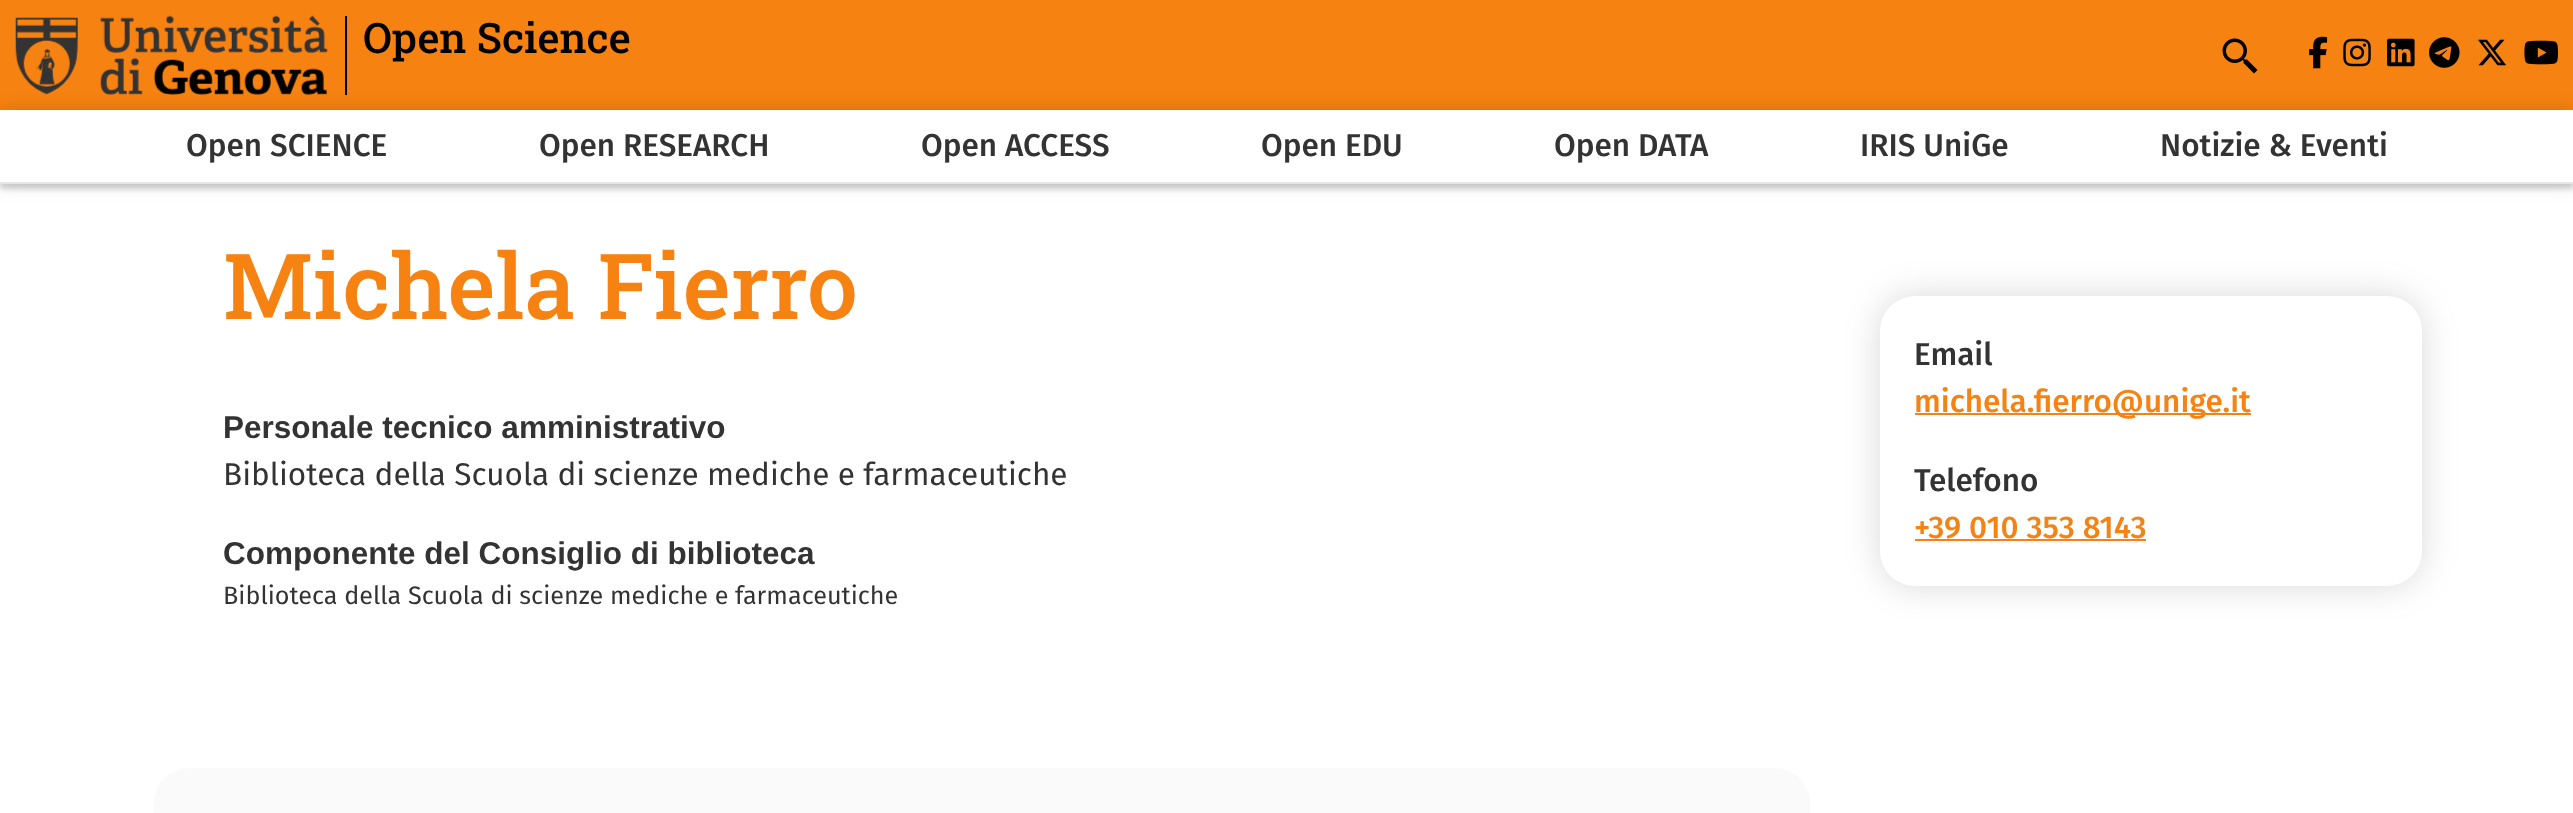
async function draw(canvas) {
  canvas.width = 2573
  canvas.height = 813
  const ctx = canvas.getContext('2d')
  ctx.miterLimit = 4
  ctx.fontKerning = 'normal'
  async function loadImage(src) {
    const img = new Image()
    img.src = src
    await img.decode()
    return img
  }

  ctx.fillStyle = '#fff'
  ctx.fillRect(0, 0, 2573, 813)
  ctx.fillStyle = '#f68212'
  ctx.fillRect(0, 0, 2573, 110)
  ctx.drawImage(await loadImage('image0.png'), 15, 15, 313, 80)
  ctx.fillStyle = '#000'
  ctx.fillRect(345, 16, 2, 79)
  ctx.font = '500 42px Roboto Slab'
  ctx.fillText('Open Science', 363, 53)
  ctx.drawImage(await loadImage('image1.png'), 2222, 38, 36, 36)
  ctx.drawImage(await loadImage('image2.png'), 2309, 36, 19, 33)
  ctx.drawImage(await loadImage('image3.png'), 2343, 38, 28, 29)
  ctx.drawImage(await loadImage('image4.png'), 2387, 38, 28, 29)
  ctx.drawImage(await loadImage('image5.png'), 2429, 37, 31, 31)
  ctx.drawImage(await loadImage('image6.png'), 2478, 39, 29, 27)
  ctx.drawImage(await loadImage('image7.png'), 2524, 40, 34, 25)
  ctx.fillStyle = '#00000026'
  ctx.filter = 'blur(2.5px)'
  ctx.beginPath()
  ctx.rect(0, 116, 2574, 73)
  ctx.fill()
  ctx.filter = 'none'
  ctx.filter = 'blur(9px)'
  ctx.beginPath()
  ctx.rect(0, 110, 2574, 74)
  ctx.fill()
  ctx.filter = 'none'
  ctx.fillStyle = '#fff'
  ctx.fillRect(0, 110, 2573, 72)
  ctx.fillStyle = '#e6e6e6'
  ctx.fillRect(0, 182, 2573, 2)
  ctx.font = '500 31.5px Fira Sans'
  ctx.fillStyle = '#333'
  ctx.fillText('Open SCIENCE', 186, 156)
  ctx.fillText('Open RESEARCH', 539, 156)
  ctx.fillText('Open ACCESS', 921, 156)
  ctx.fillText('Open EDU', 1261, 156)
  ctx.fillText('Open DATA', 1554, 156)
  ctx.fillText('IRIS UniGe', 1860, 156)
  ctx.fillText('Notizie & Eventi', 2160, 156)
  ctx.font = '500 91px Roboto Slab'
  ctx.fillStyle = '#f68212'
  ctx.fillText('Michela Fierro', 223, 319)
  ctx.font = 'bold 31.5px Liberation Sans'
  ctx.fillStyle = '#333'
  ctx.fillText('Personale tecnico amministrativo', 223, 438)
  ctx.font = '31.5px Fira Sans'
  ctx.fillText('Biblioteca della Scuola di scienze mediche e farmaceutiche', 223, 485)
  ctx.font = 'bold 31.5px Liberation Sans'
  ctx.fillText('Componente del Consiglio di biblioteca', 223, 564)
  ctx.font = '25.2px Fira Sans'
  ctx.fillText('Biblioteca della Scuola di scienze mediche e farmaceutiche', 223, 604)
  ctx.fillStyle = '#00000026'
  ctx.filter = 'blur(17.5px)'
  ctx.beginPath()
  ctx.roundRect(1880, 296, 542, 290, 35)
  ctx.fill()
  ctx.filter = 'none'
  ctx.fillStyle = '#fff'
  ctx.beginPath()
  ctx.roundRect(1880, 296, 542, 290, 35)
  ctx.fill()
  ctx.font = '500 31.5px Fira Sans'
  ctx.fillStyle = '#333'
  ctx.fillText('Email', 1914, 365)
  ctx.fillStyle = '#f68212'
  ctx.fillRect(1915, 413, 336, 2)
  ctx.fillText('michela.fierro@unige.it', 1914, 412)
  ctx.fillStyle = '#333'
  ctx.fillText('Telefono', 1914, 491)
  ctx.fillStyle = '#f68212'
  ctx.fillText('+39 010 353 8143', 1914, 538)
  ctx.fillRect(1915, 539, 231, 2)
  ctx.fillStyle = '#fafafa'
  ctx.beginPath()
  ctx.roundRect(154, 768, 1656, 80, 35)
  ctx.fill()
}

draw(document.querySelector('canvas'))
